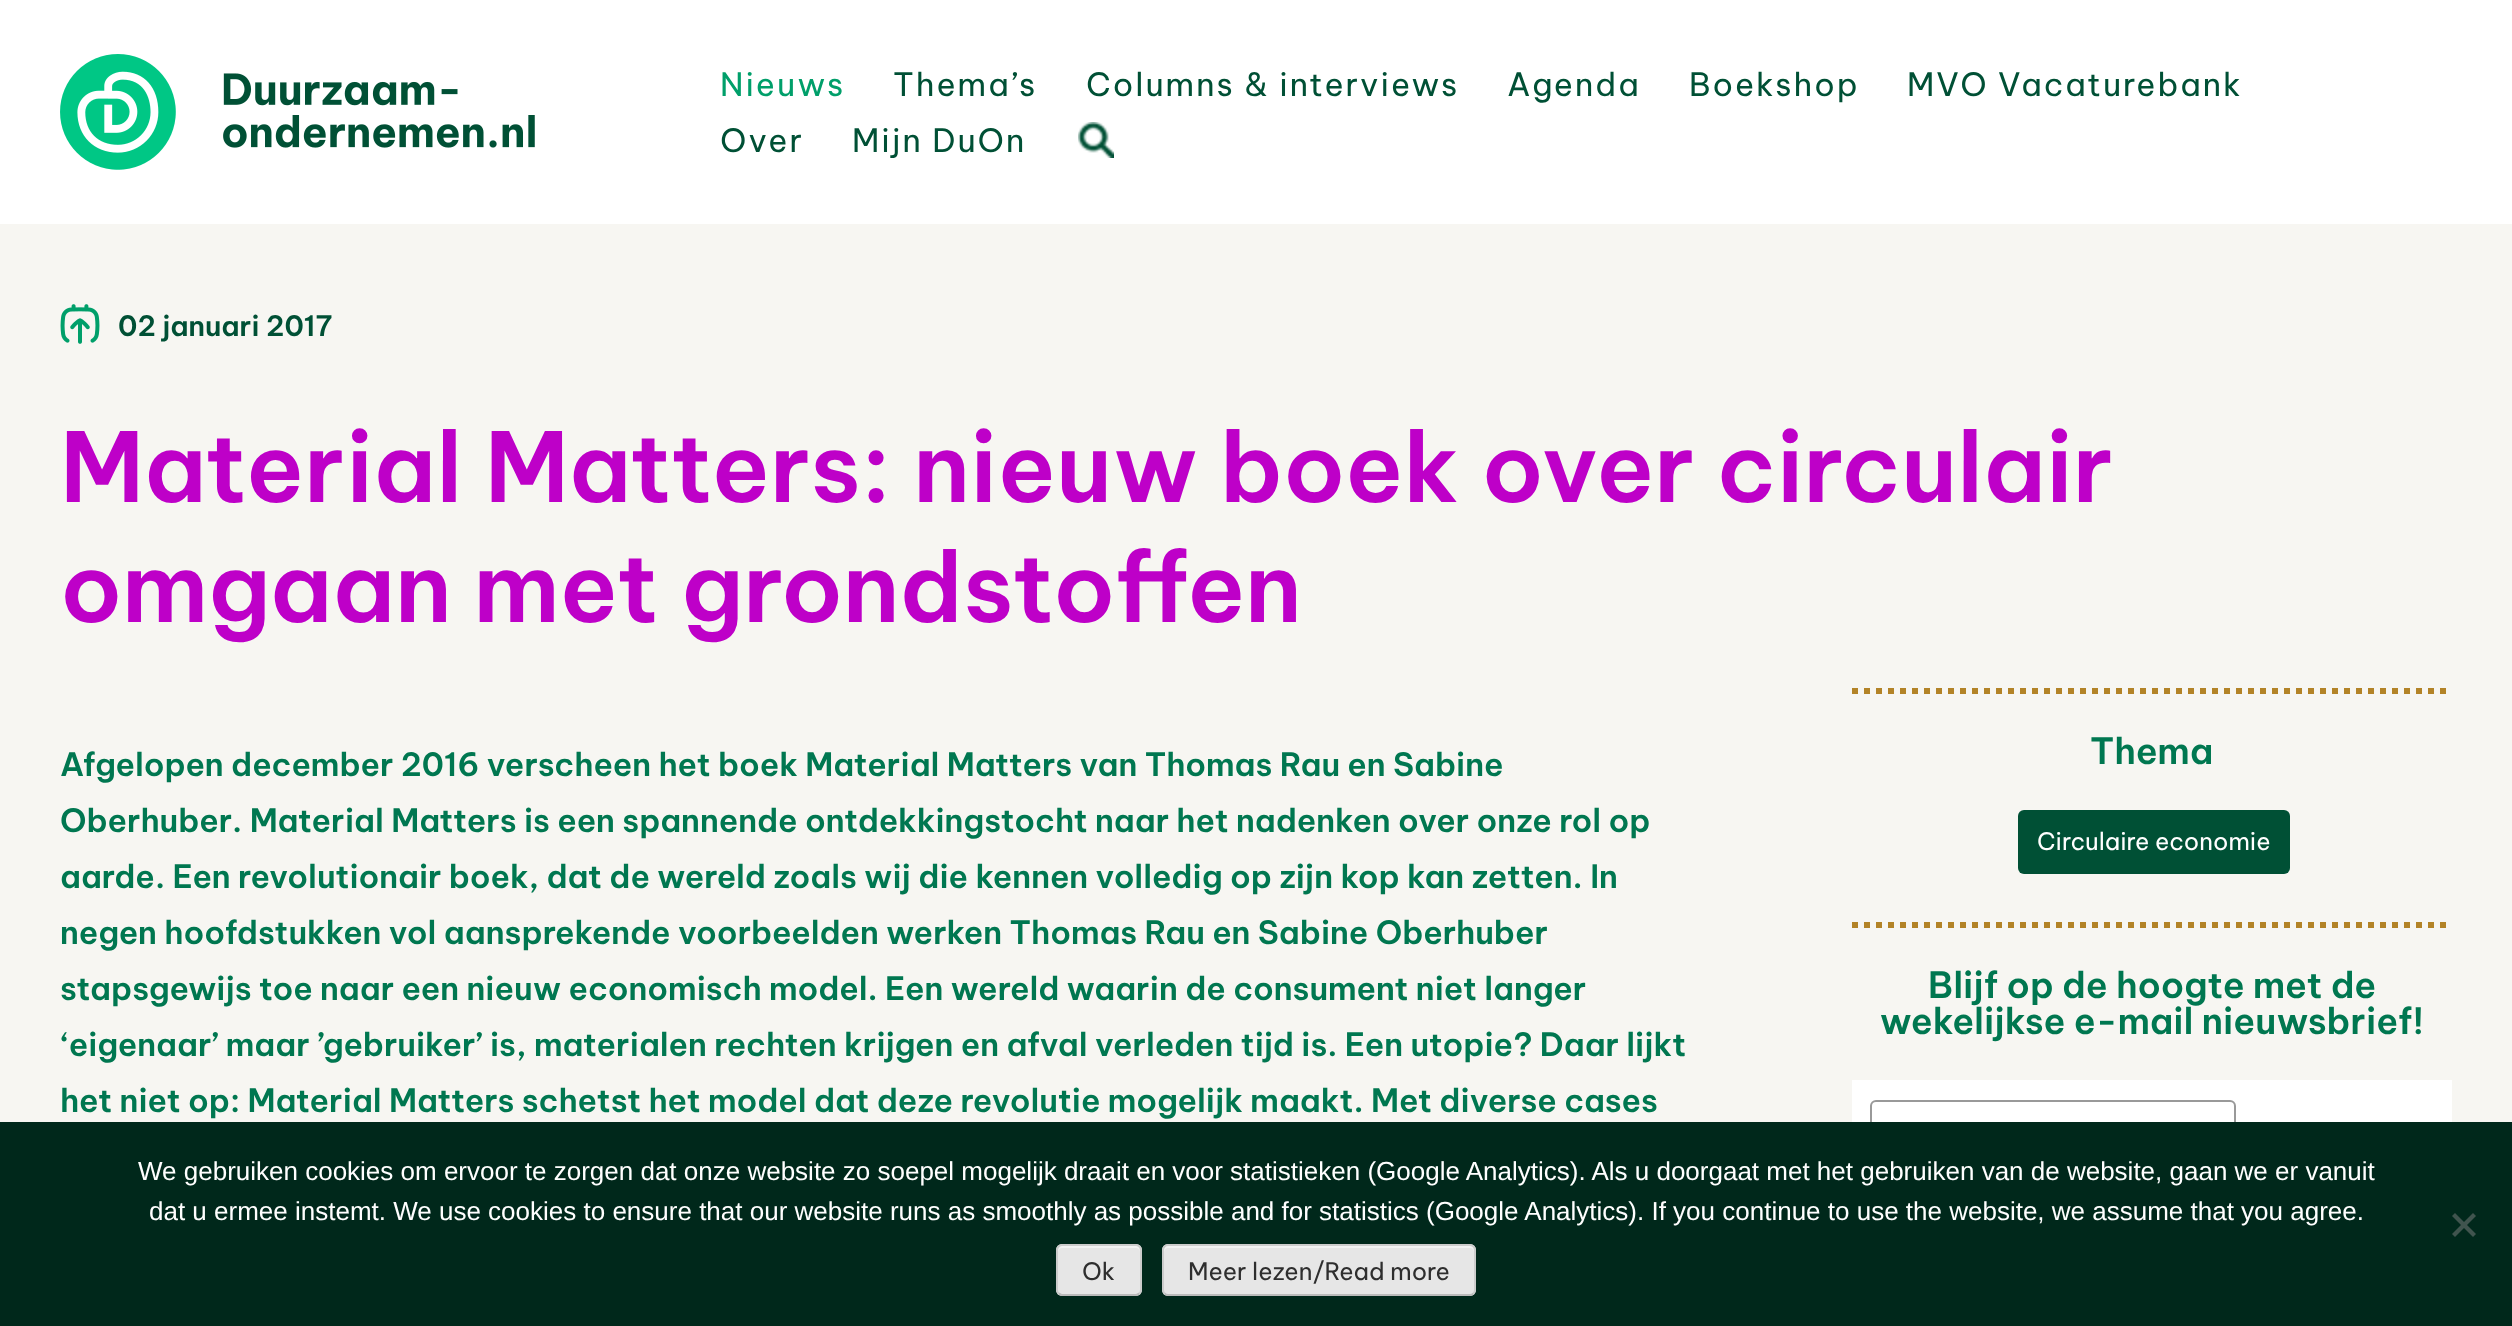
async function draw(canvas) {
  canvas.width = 2512
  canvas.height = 1326
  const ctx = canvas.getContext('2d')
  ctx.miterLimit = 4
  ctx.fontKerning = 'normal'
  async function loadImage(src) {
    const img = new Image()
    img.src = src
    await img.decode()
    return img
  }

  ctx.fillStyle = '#f7f6f2'
  ctx.fillRect(0, 0, 2512, 1326)
  ctx.fillStyle = '#fff'
  ctx.fillRect(0, 0, 2512, 224)
  ctx.drawImage(await loadImage('image0.png'), 60, 54, 475, 116)
  ctx.letterSpacing = '2px'
  ctx.font = '32px Be Vietnam Pro'
  ctx.fillStyle = '#009f6a'
  ctx.fillText('Nieuws', 720, 96)
  ctx.fillStyle = '#005035'
  ctx.fillText('Thema’s', 893, 96)
  ctx.fillText('Columns & interviews', 1086, 96)
  ctx.fillText('Agenda', 1507, 96)
  ctx.fillText('Boekshop', 1689, 96)
  ctx.fillText('MVO Vacaturebank', 1907, 96)
  ctx.fillText('Over', 720, 152)
  ctx.fillText('Mijn DuOn', 852, 152)
  ctx.drawImage(await loadImage('image1.png'), 1078, 122, 36, 36)
  ctx.drawImage(await loadImage('image2.png'), 60, 304, 40, 40)
  ctx.letterSpacing = '0px'
  ctx.font = '600 28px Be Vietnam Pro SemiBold'
  ctx.fillText('02 januari 2017', 118, 336)
  ctx.font = '600 96px Be Vietnam Pro SemiBold'
  ctx.fillStyle = '#be00c8'
  ctx.fillText('Material Matters: nieuw boek over circulair', 60, 502)
  ctx.fillText('omgaan met grondstoffen', 60, 622)
  ctx.font = '600 32px Be Vietnam Pro SemiBold'
  ctx.fillStyle = '#007750'
  ctx.fillText('Afgelopen december 2016 verscheen het boek Material Matters van Thomas Rau en Sabine', 60, 776)
  ctx.fillText('Oberhuber. Material Matters is een spannende ontdekkingstocht naar het nadenken over onze rol op', 60, 832)
  ctx.fillText('aarde. Een revolutionair boek, dat de wereld zoals wij die kennen volledig op zijn kop kan zetten. In', 60, 888)
  ctx.fillText('negen hoofdstukken vol aansprekende voorbeelden werken Thomas Rau en Sabine Oberhuber', 60, 944)
  ctx.fillText('stapsgewijs toe naar een nieuw economisch model. Een wereld waarin de consument niet langer', 60, 1000)
  ctx.fillText('‘eigenaar’ maar ’gebruiker’ is, materialen rechten krijgen en afval verleden tijd is. Een utopie? Daar lijkt', 60, 1056)
  ctx.fillText('het niet op: Material Matters schetst het model dat deze revolutie mogelijk maakt. Met diverse cases', 60, 1112)
  ctx.beginPath()
  ctx.moveTo(1852, 691)
  ctx.lineTo(2452, 691)
  ctx.strokeStyle = '#b38327'
  ctx.lineWidth = 6
  ctx.setLineDash([6, 6])
  ctx.stroke()
  ctx.font = '600 36px Be Vietnam Pro SemiBold'
  ctx.fillText('Thema', 2090, 764)
  ctx.fillStyle = '#005035'
  ctx.beginPath()
  ctx.roundRect(2018, 810, 272, 64, 6)
  ctx.fill()
  ctx.font = '24px Be Vietnam Pro'
  ctx.fillStyle = '#fff'
  ctx.fillText('Circulaire economie', 2037, 850)
  ctx.beginPath()
  ctx.moveTo(1852, 925)
  ctx.lineTo(2452, 925)
  ctx.stroke()
  ctx.font = '600 36px Be Vietnam Pro SemiBold'
  ctx.fillStyle = '#007750'
  ctx.fillText('Blijf op de hoogte met de', 1928, 998)
  ctx.fillText('wekelijkse e-mail nieuwsbrief!', 1880, 1034)
  ctx.fillStyle = '#fff'
  ctx.fillRect(1852, 1080, 600, 42)
  ctx.beginPath()
  ctx.roundRect(1871, 1101, 364, 66, 5)
  ctx.strokeStyle = '#999'
  ctx.lineWidth = 2
  ctx.setLineDash([])
  ctx.stroke()
  ctx.fillStyle = '#00281b'
  ctx.fillRect(0, 1122, 2512, 204)
  ctx.font = '26px Liberation Sans'
  ctx.fillStyle = '#fff'
  ctx.fillText('We gebruiken cookies om ervoor te zorgen dat onze website zo soepel mogelijk draait en voor statistieken (Google Analytics). Als u doorgaat met het gebruiken van de website, gaan we er vanuit', 138, 1180)
  ctx.fillText('dat u ermee instemt. We use cookies to ensure that our website runs as smoothly as possible and for statistics (Google Analytics). If you continue to use the website, we assume that you agree.', 149, 1220)
  ctx.fillStyle = '#40544e'
  ctx.beginPath()
  ctx.moveTo(2473, 1213)
  ctx.lineTo(2476, 1216)
  ctx.lineTo(2455, 1237)
  ctx.lineTo(2452, 1234)
  ctx.closePath()
  ctx.fill()
  ctx.beginPath()
  ctx.moveTo(2452, 1216)
  ctx.lineTo(2455, 1213)
  ctx.lineTo(2476, 1234)
  ctx.lineTo(2473, 1237)
  ctx.closePath()
  ctx.fill()
  ctx.fillStyle = '#e6e6e6'
  ctx.beginPath()
  ctx.roundRect(1056, 1244, 86, 52, 6)
  ctx.fill()
  ctx.fillStyle = '#f3f3f3'
  ctx.beginPath()
  ctx.moveTo(1062, 1248)
  ctx.lineTo(1136, 1248)
  ctx.bezierCurveTo(1138, 1248, 1140, 1250, 1140, 1252)
  ctx.bezierCurveTo(1140, 1243, 1132, 1246, 1124, 1246)
  ctx.lineTo(1074, 1246)
  ctx.bezierCurveTo(1066, 1246, 1058, 1243, 1058, 1252)
  ctx.bezierCurveTo(1058, 1250, 1060, 1248, 1062, 1248)
  ctx.closePath()
  ctx.fill()
  ctx.beginPath()
  ctx.moveTo(1139.5, 1293.5)
  ctx.lineTo(1136.5, 1295)
  ctx.lineTo(1061.5, 1295)
  ctx.lineTo(1058.5, 1293.5)
  ctx.strokeStyle = '#bbb'
  ctx.stroke()
  ctx.beginPath()
  ctx.moveTo(1058.5, 1293.5)
  ctx.bezierCurveTo(1057.5, 1292.5, 1057, 1291.5, 1057, 1290)
  ctx.lineTo(1057, 1250)
  ctx.bezierCurveTo(1057, 1248.5, 1057.5, 1247.5, 1058.5, 1246.5)
  ctx.bezierCurveTo(1059.5, 1245.5, 1060.5, 1245, 1062, 1245)
  ctx.lineTo(1136, 1245)
  ctx.bezierCurveTo(1137.5, 1245, 1138.5, 1245.5, 1139.5, 1246.5)
  ctx.bezierCurveTo(1140.5, 1247.5, 1141, 1248.5, 1141, 1250)
  ctx.lineTo(1141, 1290)
  ctx.bezierCurveTo(1141, 1291.5, 1140.5, 1292.5, 1139.5, 1293.5)
  ctx.strokeStyle = '#ccc'
  ctx.stroke()
  ctx.font = '24px Be Vietnam Pro'
  ctx.fillStyle = '#2e2e2e'
  ctx.fillText('Ok', 1082, 1280)
  ctx.fillStyle = '#e6e6e6'
  ctx.beginPath()
  ctx.roundRect(1162, 1244, 314, 52, 6)
  ctx.fill()
  ctx.fillStyle = '#f3f3f3'
  ctx.beginPath()
  ctx.moveTo(1168, 1248)
  ctx.lineTo(1470, 1248)
  ctx.bezierCurveTo(1472, 1248, 1474, 1250, 1474, 1252)
  ctx.bezierCurveTo(1474, 1249, 1474, 1246, 1470, 1246)
  ctx.lineTo(1166, 1246)
  ctx.bezierCurveTo(1164, 1247, 1164, 1250, 1164, 1252)
  ctx.bezierCurveTo(1164, 1250, 1166, 1248, 1168, 1248)
  ctx.closePath()
  ctx.fill()
  ctx.beginPath()
  ctx.moveTo(1473.5, 1293.5)
  ctx.bezierCurveTo(1472.5, 1294.5, 1471.5, 1295, 1470, 1295)
  ctx.lineTo(1168, 1295)
  ctx.bezierCurveTo(1166.5, 1295, 1165.5, 1294.5, 1164.5, 1293.5)
  ctx.strokeStyle = '#bbb'
  ctx.stroke()
  ctx.beginPath()
  ctx.moveTo(1164.5, 1293.5)
  ctx.bezierCurveTo(1163.5, 1292.5, 1163, 1291.5, 1163, 1290)
  ctx.lineTo(1163, 1250)
  ctx.bezierCurveTo(1163, 1248.5, 1163.5, 1247.5, 1164.5, 1246.5)
  ctx.bezierCurveTo(1165.5, 1245.5, 1166.5, 1245, 1168, 1245)
  ctx.lineTo(1470, 1245)
  ctx.bezierCurveTo(1471.5, 1245, 1472.5, 1245.5, 1473.5, 1246.5)
  ctx.bezierCurveTo(1474.5, 1247.5, 1475, 1248.5, 1475, 1250)
  ctx.lineTo(1475, 1290)
  ctx.bezierCurveTo(1475, 1291.5, 1474.5, 1292.5, 1473.5, 1293.5)
  ctx.strokeStyle = '#ccc'
  ctx.stroke()
  ctx.fillStyle = '#2e2e2e'
  ctx.fillText('Meer lezen/Read more', 1188, 1280)
}

draw(document.querySelector('canvas'))
